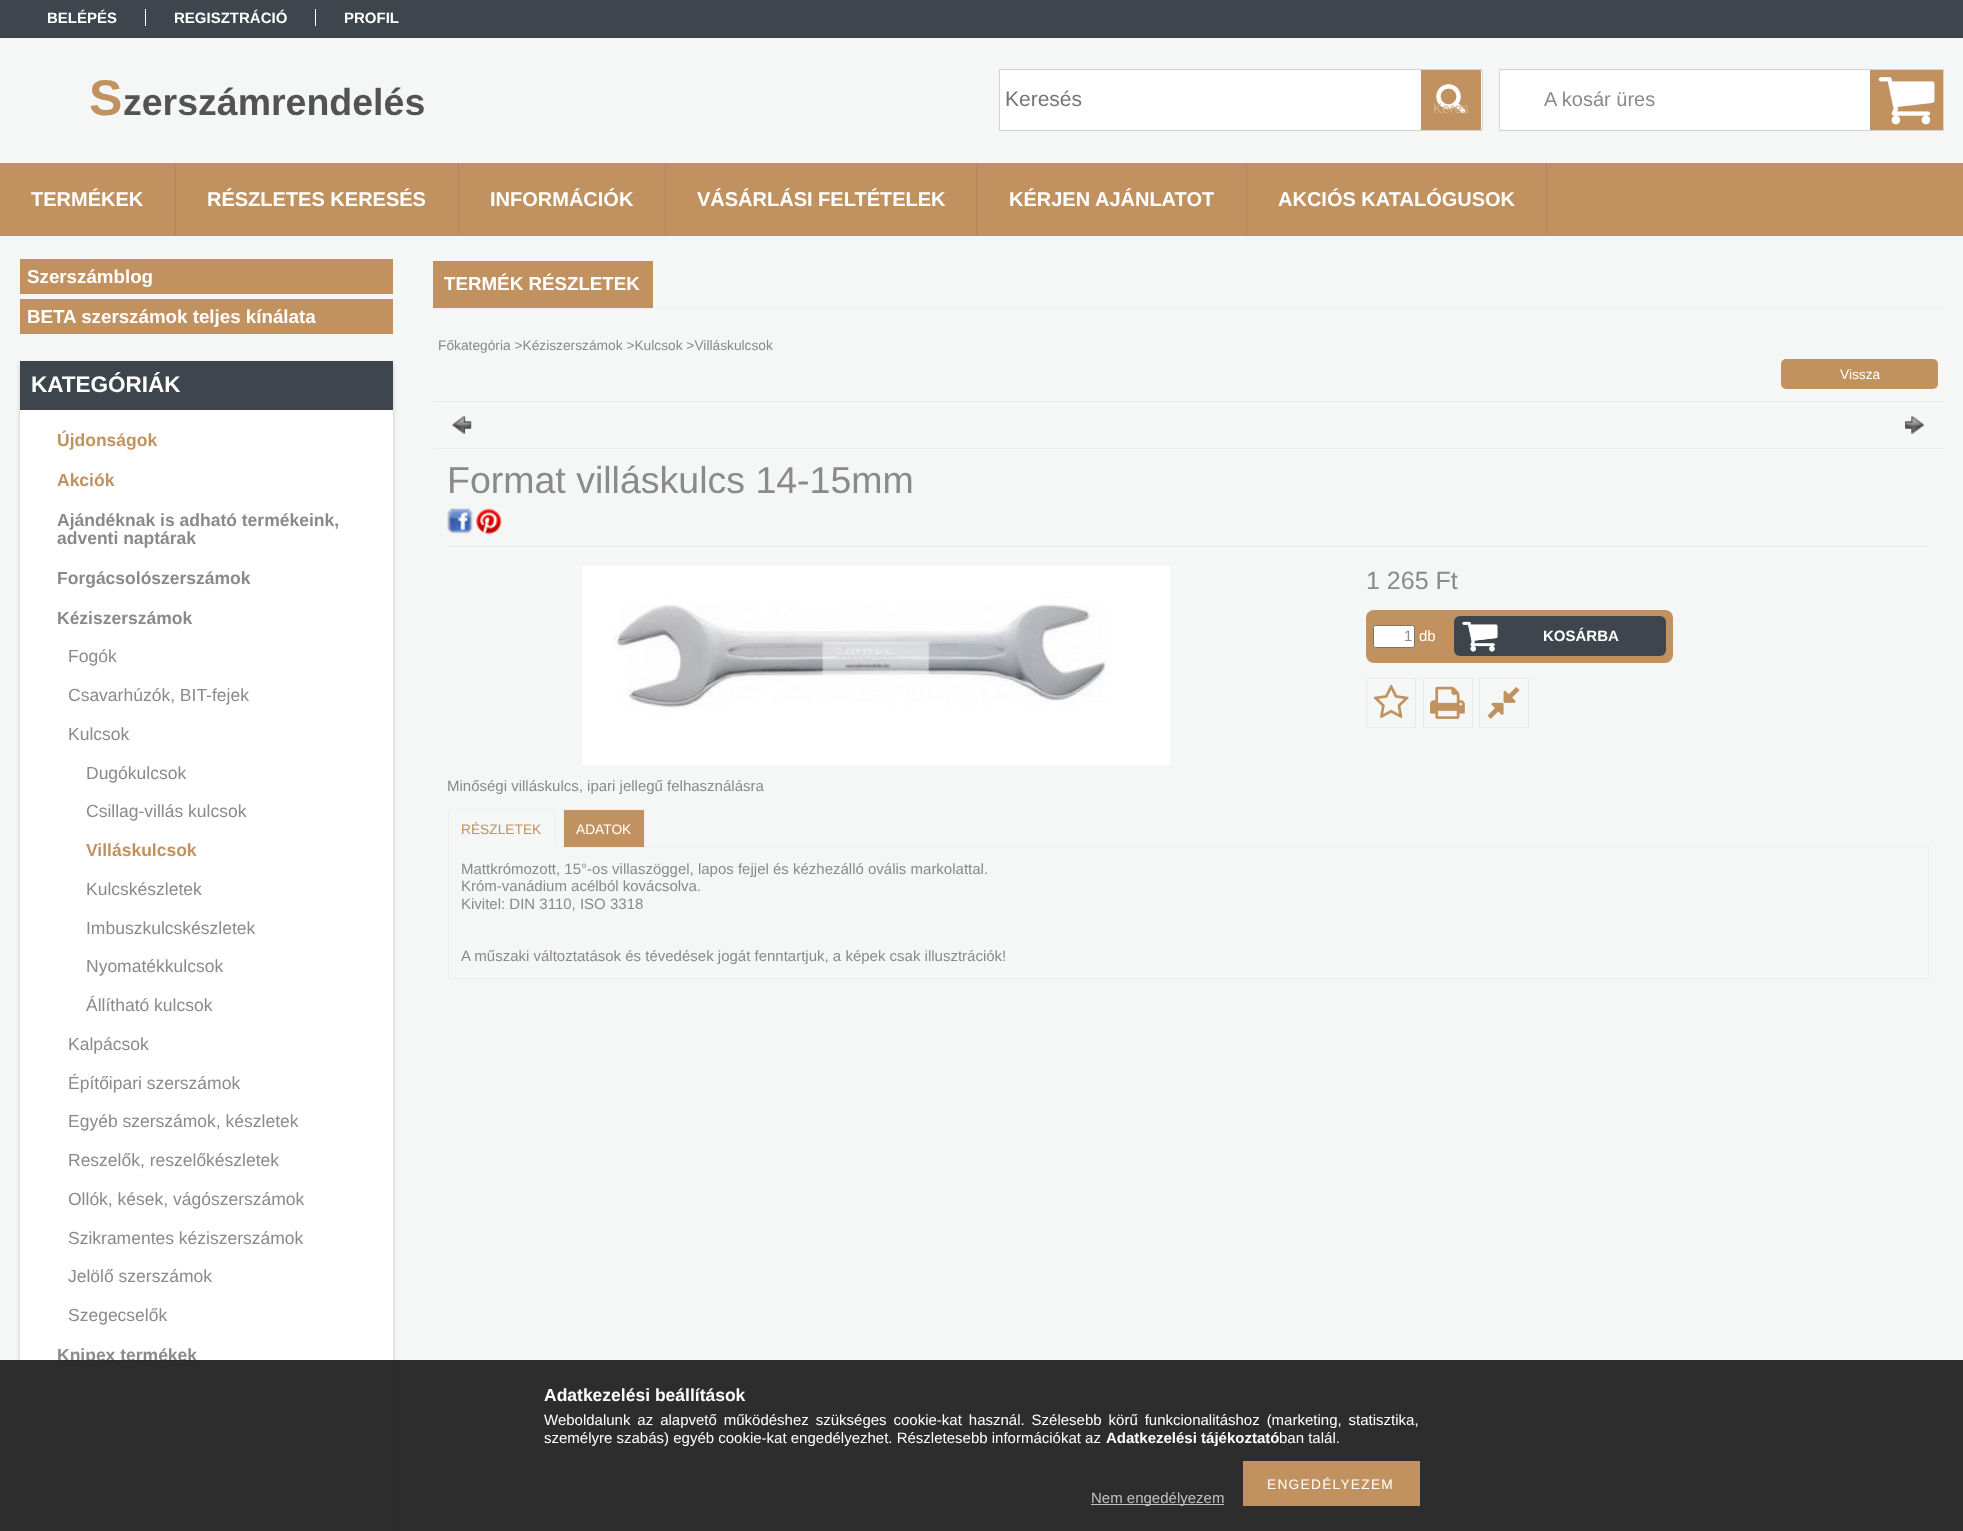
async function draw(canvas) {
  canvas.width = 1963
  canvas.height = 1531
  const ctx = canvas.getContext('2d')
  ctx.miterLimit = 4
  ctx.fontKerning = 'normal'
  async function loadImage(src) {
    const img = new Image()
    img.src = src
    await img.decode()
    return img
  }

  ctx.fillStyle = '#f5f6f6'
  ctx.fillRect(0, 0, 1963, 1531)
  ctx.fillStyle = '#3e454c'
  ctx.fillRect(0, 0, 1963, 38)
  ctx.font = 'bold 15px Liberation Sans'
  ctx.fillStyle = '#fff'
  ctx.fillText('BELÉPÉS', 47, 23)
  ctx.fillRect(145, 9, 1, 17)
  ctx.fillText('REGISZTRÁCIÓ', 174, 23)
  ctx.fillRect(315, 9, 1, 17)
  ctx.fillText('PROFIL', 344, 23)
  ctx.font = 'bold 50px Liberation Sans'
  ctx.fillStyle = '#c19260'
  ctx.fillText('S', 89, 115)
  ctx.font = 'bold 37.5px Liberation Sans'
  ctx.fillStyle = '#535353'
  ctx.fillText('zerszámrendelés', 123, 115)
  ctx.fillStyle = '#fff'
  ctx.beginPath()
  ctx.rect(999.5, 69.5, 483, 61)
  ctx.fill()
  ctx.strokeStyle = '#d4d4d4'
  ctx.stroke()
  ctx.font = '21px Liberation Sans'
  ctx.fillStyle = '#757575'
  ctx.fillText('Keresés', 1005, 106)
  ctx.fillStyle = '#c19260'
  ctx.fillRect(1421, 70, 60, 60)
  ctx.drawImage(await loadImage('image0.png'), 1436, 84, 30, 30)
  ctx.font = '13.75px Liberation Sans'
  ctx.fillStyle = '#d4b390'
  ctx.fillText('Keres', 1433, 113)
  ctx.fillStyle = '#fff'
  ctx.fillRect(1500, 70, 370, 60)
  ctx.strokeRect(1499.5, 69.5, 444, 61)
  ctx.font = '20px Liberation Sans'
  ctx.fillStyle = '#8b8a8a'
  ctx.fillText('A kosár üres', 1544, 106)
  ctx.fillStyle = '#c19260'
  ctx.fillRect(1870, 70, 73, 60)
  ctx.drawImage(await loadImage('image1.png'), 1878, 77, 57, 48)
  ctx.fillRect(0, 163, 1963, 73)
  ctx.fillStyle = '#b38859'
  ctx.fillRect(175, 163, 1, 73)
  ctx.font = 'bold 20px Liberation Sans'
  ctx.fillStyle = '#fff'
  ctx.fillText('TERMÉKEK', 31, 206)
  ctx.fillStyle = '#b38859'
  ctx.fillRect(458, 163, 1, 73)
  ctx.fillStyle = '#fff'
  ctx.fillText('RÉSZLETES KERESÉS', 207, 206)
  ctx.fillStyle = '#b38859'
  ctx.fillRect(665, 163, 1, 73)
  ctx.fillStyle = '#fff'
  ctx.fillText('INFORMÁCIÓK', 490, 206)
  ctx.fillStyle = '#b38859'
  ctx.fillRect(976, 163, 1, 73)
  ctx.fillStyle = '#fff'
  ctx.fillText('VÁSÁRLÁSI FELTÉTELEK', 697, 206)
  ctx.fillStyle = '#b38859'
  ctx.fillRect(1246, 163, 1, 73)
  ctx.fillStyle = '#fff'
  ctx.fillText('KÉRJEN AJÁNLATOT', 1009, 206)
  ctx.fillStyle = '#b38859'
  ctx.fillRect(1546, 163, 1, 73)
  ctx.fillStyle = '#fff'
  ctx.fillText('AKCIÓS KATALÓGUSOK', 1278, 206)
  ctx.fillStyle = '#c19260'
  ctx.fillRect(20, 259, 373, 35)
  ctx.font = 'bold 18.75px Liberation Sans'
  ctx.fillStyle = '#fff'
  ctx.fillText('Szerszámblog', 27, 283)
  ctx.fillStyle = '#c19260'
  ctx.fillRect(20, 299, 373, 35)
  ctx.fillStyle = '#fff'
  ctx.fillText('BETA szerszámok teljes kínálata', 27, 323)
  ctx.fillStyle = '#00000033'
  ctx.filter = 'blur(2px)'
  ctx.beginPath()
  ctx.rect(20, 364, 373, 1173)
  ctx.fill()
  ctx.filter = 'none'
  ctx.fillStyle = '#3e454c'
  ctx.fillRect(20, 361, 373, 49)
  ctx.font = 'bold 22.5px Liberation Sans'
  ctx.fillStyle = '#fff'
  ctx.fillText('KATEGÓRIÁK', 31, 392)
  ctx.fillRect(20, 410, 373, 1121)
  ctx.font = 'bold 17.5px Liberation Sans'
  ctx.fillStyle = '#c19260'
  ctx.fillText('Újdonságok', 57, 446)
  ctx.fillText('Akciók', 57, 486)
  ctx.fillStyle = '#8b8a8a'
  ctx.fillText('Ajándéknak is adható termékeink,', 57, 526)
  ctx.fillText('adventi naptárak', 57, 544)
  ctx.fillText('Forgácsolószerszámok', 57, 584)
  ctx.fillText('Kéziszerszámok', 57, 624)
  ctx.font = '17.5px Liberation Sans'
  ctx.fillText('Fogók', 68, 662)
  ctx.fillText('Csavarhúzók, BIT-fejek', 68, 701)
  ctx.fillText('Kulcsok', 68, 740)
  ctx.fillText('Dugókulcsok', 86, 779)
  ctx.fillText('Csillag-villás kulcsok', 86, 817)
  ctx.font = 'bold 17.5px Liberation Sans'
  ctx.fillStyle = '#c19260'
  ctx.fillText('Villáskulcsok', 86, 856)
  ctx.font = '17.5px Liberation Sans'
  ctx.fillStyle = '#8b8a8a'
  ctx.fillText('Kulcskészletek', 86, 895)
  ctx.fillText('Imbuszkulcskészletek', 86, 934)
  ctx.fillText('Nyomatékkulcsok', 86, 972)
  ctx.fillText('Állítható kulcsok', 86, 1011)
  ctx.fillText('Kalpácsok', 68, 1050)
  ctx.fillText('Építőipari szerszámok', 68, 1089)
  ctx.fillText('Egyéb szerszámok, készletek', 68, 1127)
  ctx.fillText('Reszelők, reszelőkészletek', 68, 1166)
  ctx.fillText('Ollók, kések, vágószerszámok', 68, 1205)
  ctx.fillText('Szikramentes kéziszerszámok', 68, 1244)
  ctx.fillText('Jelölő szerszámok', 68, 1282)
  ctx.fillText('Szegecselők', 68, 1321)
  ctx.font = 'bold 17.5px Liberation Sans'
  ctx.fillText('Knipex termékek', 57, 1361)
  ctx.fillStyle = '#efefef'
  ctx.fillRect(433, 308, 1511, 1)
  ctx.fillStyle = '#c19260'
  ctx.fillRect(433, 261, 220, 47)
  ctx.font = 'bold 18.75px Liberation Sans'
  ctx.fillStyle = '#fff'
  ctx.fillText('TERMÉK RÉSZLETEK', 444, 290)
  ctx.font = '13.75px Liberation Sans'
  ctx.fillStyle = '#8b8a8a'
  ctx.fillText('Főkategória >Kéziszerszámok >Kulcsok >Villáskulcsok', 438, 350)
  ctx.fillStyle = '#c19260'
  ctx.beginPath()
  ctx.roundRect(1781, 359, 157, 30, 5)
  ctx.fill()
  ctx.fillStyle = '#fff'
  ctx.fillText('Vissza', 1840, 379)
  ctx.fillStyle = '#eceaea'
  ctx.fillRect(433, 401, 1511, 1)
  ctx.drawImage(await loadImage('image2.png'), 452, 416, 20, 18)
  ctx.drawImage(await loadImage('image3.png'), 1905, 416, 19, 18)
  ctx.fillRect(433, 448, 1511, 1)
  ctx.fillRect(448, 546, 1481, 1)
  ctx.font = '37.5px Liberation Sans'
  ctx.fillStyle = '#8b8a8a'
  ctx.fillText('Format villáskulcs 14-15mm', 447, 493)
  ctx.drawImage(await loadImage('image4.png'), 447, 508, 26, 26)
  ctx.drawImage(await loadImage('image5.png'), 476, 508, 26, 26)
  ctx.drawImage(await loadImage('image6.png'), 582, 566, 588, 199)
  ctx.font = '25px Liberation Sans'
  ctx.fillText('1 265 Ft', 1366, 589)
  ctx.fillStyle = '#c19260'
  ctx.beginPath()
  ctx.roundRect(1366, 610, 307, 53, 8)
  ctx.fill()
  ctx.fillStyle = '#fff'
  ctx.beginPath()
  ctx.roundRect(1373.5, 625.5, 41, 22, 2)
  ctx.fill()
  ctx.strokeStyle = '#767676'
  ctx.stroke()
  ctx.font = '15px Liberation Sans'
  ctx.fillStyle = '#8b8a8a'
  ctx.fillText('1', 1404, 641)
  ctx.fillStyle = '#fff'
  ctx.fillText('db', 1419, 641)
  ctx.fillStyle = '#3e454c'
  ctx.beginPath()
  ctx.roundRect(1454, 616, 212, 40, 6)
  ctx.fill()
  ctx.drawImage(await loadImage('image7.png'), 1462, 621, 36, 31)
  ctx.drawImage(await loadImage('image8.png'), 1462, 621, 36, 31)
  ctx.font = 'bold 15px Liberation Sans'
  ctx.fillStyle = '#fff'
  ctx.fillText('KOSÁRBA', 1543, 641)
  ctx.strokeStyle = '#eaeaea'
  ctx.strokeRect(1366.5, 678.5, 49, 49)
  ctx.drawImage(await loadImage('image9.png'), 1373, 684, 36, 34)
  ctx.strokeRect(1423.5, 678.5, 49, 49)
  ctx.drawImage(await loadImage('image10.png'), 1430, 686, 35, 33)
  ctx.strokeRect(1479.5, 678.5, 49, 49)
  ctx.drawImage(await loadImage('image11.png'), 1487, 687, 33, 32)
  ctx.font = '15px Liberation Sans'
  ctx.fillStyle = '#8b8a8a'
  ctx.fillText('Minőségi villáskulcs, ipari jellegű felhasználásra', 447, 791)
  ctx.strokeStyle = '#efefef'
  ctx.strokeRect(448.5, 846.5, 1480, 132)
  ctx.fillStyle = '#f5f5f5'
  ctx.fillRect(449, 846, 105, 1)
  ctx.fillStyle = '#efefef'
  ctx.fillRect(448, 809, 107, 1)
  ctx.fillRect(554, 809, 1, 39)
  ctx.fillStyle = '#f5f5f5'
  ctx.fillRect(448, 846, 107, 1)
  ctx.fillStyle = '#efefef'
  ctx.fillRect(448, 809, 1, 39)
  ctx.font = '13.75px Liberation Sans'
  ctx.fillStyle = '#c19260'
  ctx.fillText('RÉSZLETEK', 461, 834)
  ctx.beginPath()
  ctx.rect(563.5, 809.5, 81, 38)
  ctx.fill()
  ctx.stroke()
  ctx.fillStyle = '#fff'
  ctx.fillText('ADATOK', 576, 834)
  ctx.font = '15px Liberation Sans'
  ctx.fillStyle = '#8b8a8a'
  ctx.fillText('Mattkrómozott, 15°-os villaszöggel, lapos fejjel és kézhezálló ovális markolattal.', 461, 874)
  ctx.fillText('Króm-vanádium acélból kovácsolva.', 461, 891)
  ctx.fillText('Kivitel: DIN 3110, ISO 3318', 461, 909)
  ctx.fillText('A műszaki változtatások és tévedések jogát fenntartjuk, a képek csak illusztrációk!', 461, 961)
  ctx.fillStyle = '#222222f2'
  ctx.fillRect(0, 1360, 1963, 171)
  ctx.font = 'bold 17.5px Liberation Sans'
  ctx.fillStyle = '#fff'
  ctx.fillText('Adatkezelési beállítások', 544, 1401)
  ctx.wordSpacing = '2.75px'
  ctx.font = '15px Liberation Sans'
  ctx.fillText('Weboldalunk az alapvető működéshez szükséges cookie-kat használ. Szélesebb körű funkcionalitáshoz (marketing, statisztika,', 544, 1425)
  ctx.wordSpacing = '0px'
  ctx.fillText('személyre szabás) egyéb cookie-kat engedélyezhet. Részletesebb információkat az', 544, 1443)
  ctx.font = 'bold 15px Liberation Sans'
  ctx.fillText('Adatkezelési tájékoztató', 1106, 1443)
  ctx.font = '15px Liberation Sans'
  ctx.fillText('ban talál.', 1279, 1443)
  ctx.fillStyle = '#c19260'
  ctx.fillRect(1243, 1461, 177, 45)
  ctx.letterSpacing = '1.25px'
  ctx.font = '13.75px Liberation Sans'
  ctx.fillStyle = '#fff'
  ctx.fillText('ENGEDÉLYEZEM', 1267, 1489)
  ctx.fillStyle = '#c0c0c0'
  ctx.fillRect(1091, 1504, 133, 1)
  ctx.letterSpacing = '0px'
  ctx.font = '15px Liberation Sans'
  ctx.fillText('Nem engedélyezem', 1091, 1503)
}

draw(document.querySelector('canvas'))
